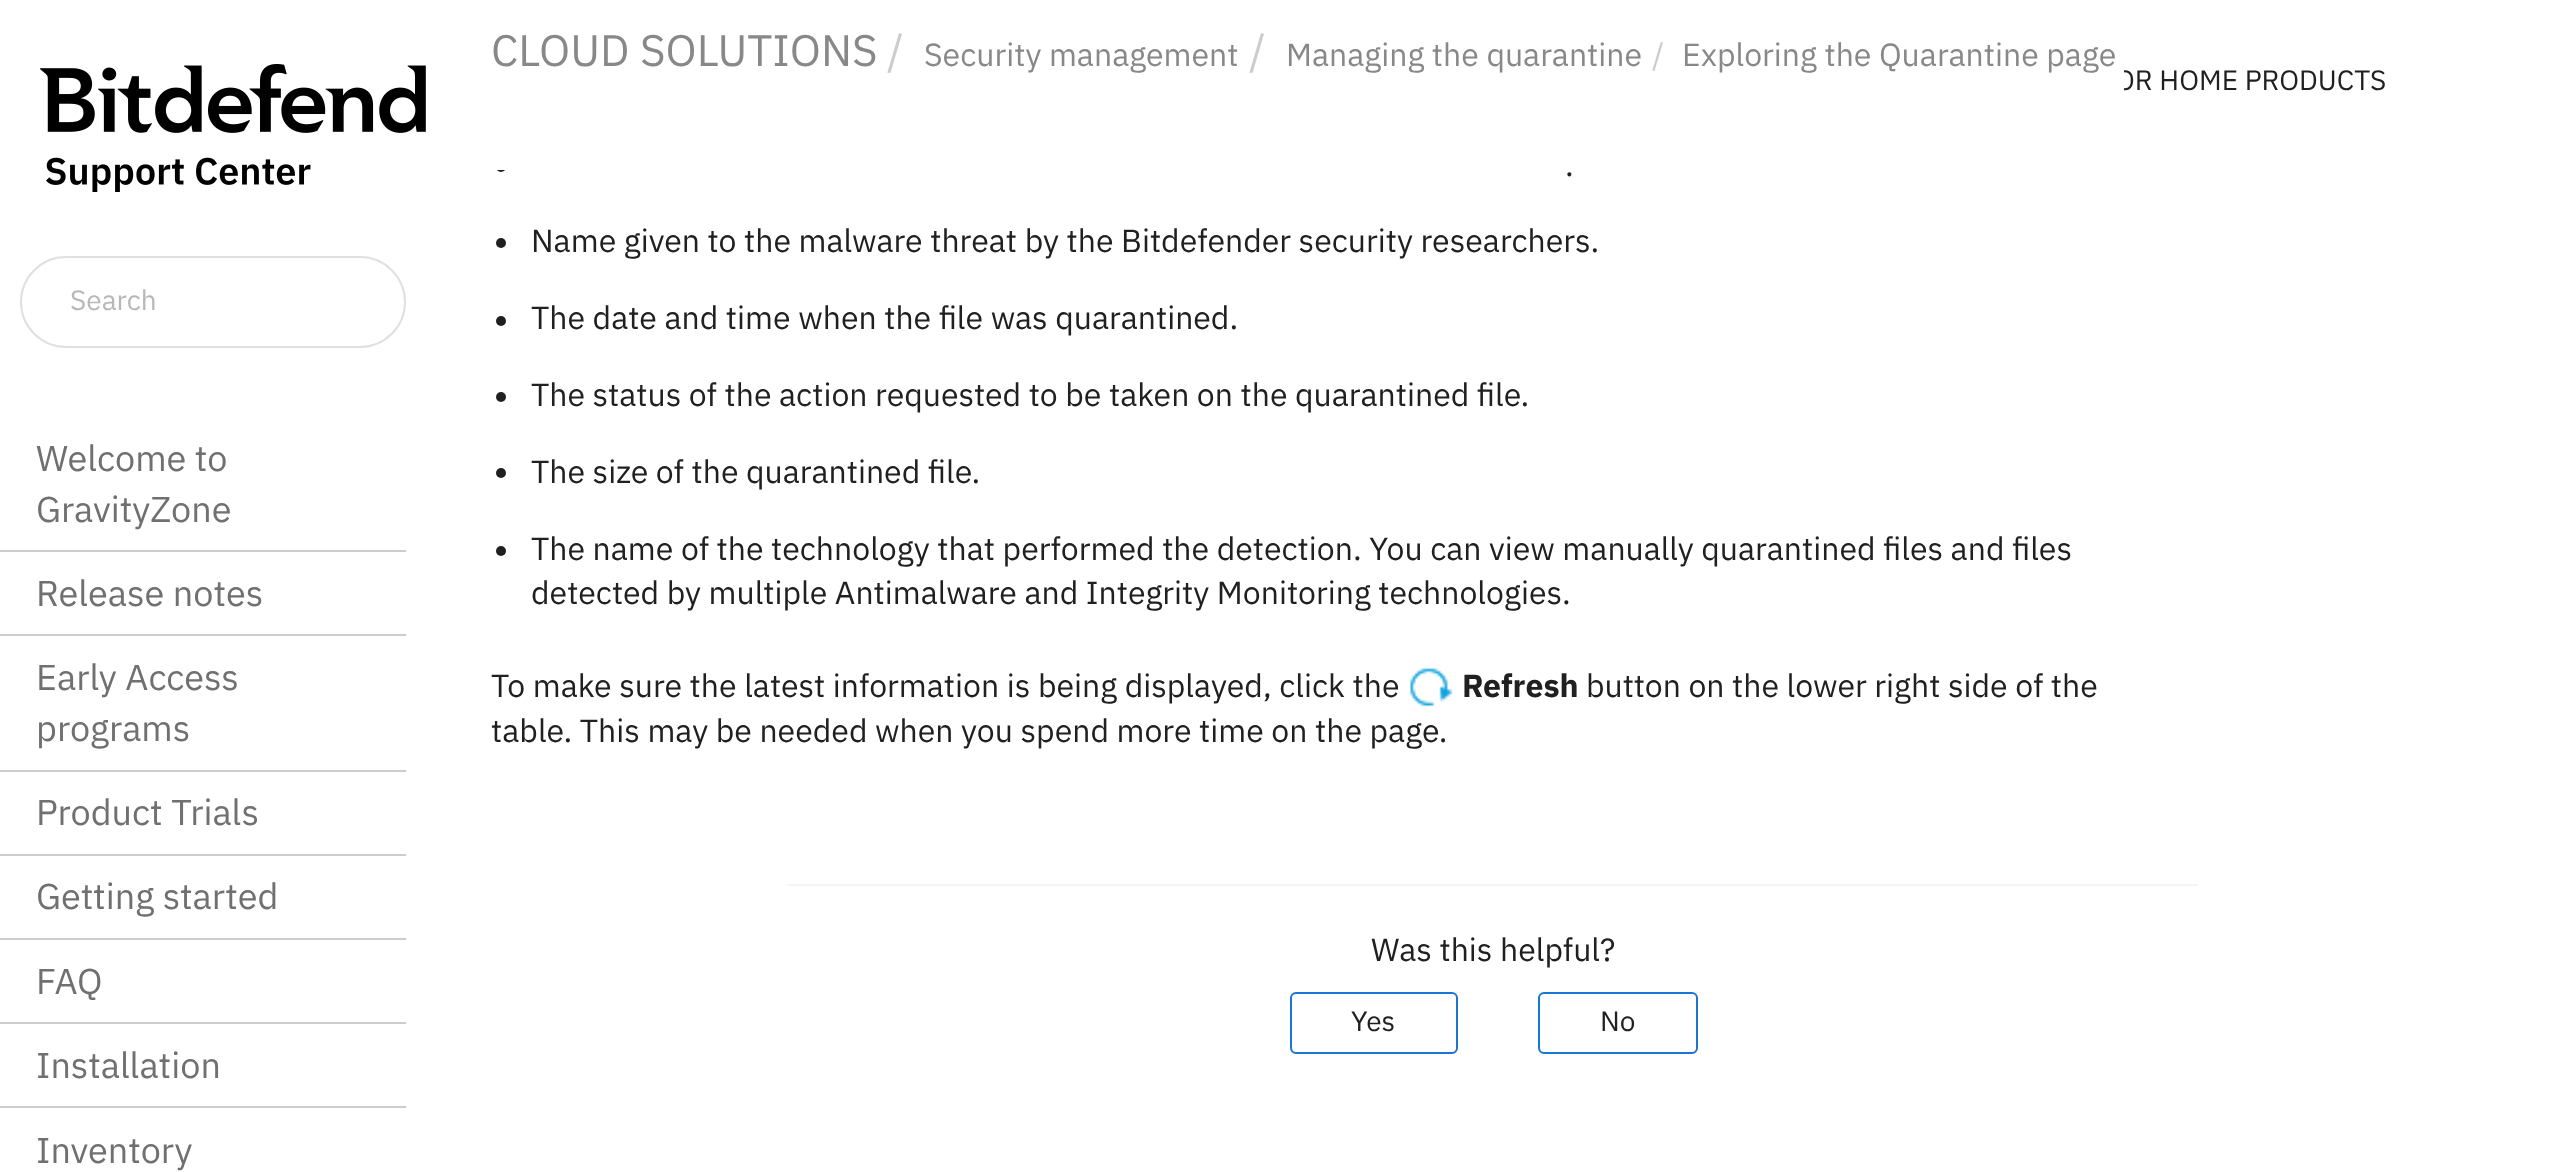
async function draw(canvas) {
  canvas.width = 2560
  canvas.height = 1172
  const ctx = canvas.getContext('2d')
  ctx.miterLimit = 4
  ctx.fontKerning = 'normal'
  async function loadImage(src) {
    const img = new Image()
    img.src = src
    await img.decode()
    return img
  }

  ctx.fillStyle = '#fff'
  ctx.fillRect(0, 0, 2560, 1172)
  ctx.drawImage(await loadImage('image0.png'), 40, 64, 386, 128)
  ctx.beginPath()
  ctx.roundRect(21, 257, 384, 90, 45)
  ctx.strokeStyle = '#e0e0e0'
  ctx.lineWidth = 2
  ctx.stroke()
  ctx.font = '28px IBM Plex Sans'
  ctx.fillStyle = '#b8b8b8'
  ctx.fillText('Search', 70, 310)
  ctx.fillStyle = '#ccc'
  ctx.fillRect(0, 550, 406, 2)
  ctx.font = '36px IBM Plex Sans'
  ctx.fillStyle = '#707070'
  ctx.fillText('Welcome to', 36, 471)
  ctx.fillText('GravityZone', 36, 522)
  ctx.fillStyle = '#ccc'
  ctx.fillRect(0, 634, 406, 2)
  ctx.fillStyle = '#707070'
  ctx.fillText('Release notes', 36, 606)
  ctx.fillStyle = '#ccc'
  ctx.fillRect(0, 770, 406, 2)
  ctx.fillStyle = '#707070'
  ctx.fillText('Early Access', 36, 690)
  ctx.fillText('programs', 36, 741)
  ctx.fillStyle = '#ccc'
  ctx.fillRect(0, 854, 406, 2)
  ctx.fillStyle = '#707070'
  ctx.fillText('Product Trials', 36, 825)
  ctx.fillStyle = '#ccc'
  ctx.fillRect(0, 938, 406, 2)
  ctx.fillStyle = '#707070'
  ctx.fillText('Getting started', 36, 909)
  ctx.fillStyle = '#ccc'
  ctx.fillRect(0, 1022, 406, 2)
  ctx.fillStyle = '#707070'
  ctx.fillText('FAQ', 36, 994)
  ctx.fillStyle = '#ccc'
  ctx.fillRect(0, 1106, 406, 2)
  ctx.fillStyle = '#707070'
  ctx.fillText('Installation', 36, 1078)
  ctx.fillText('Inventory', 36, 1163)
  ctx.font = '28px IBM Plex Sans'
  ctx.fillStyle = '#202020'
  ctx.fillText('OR HOME PRODUCTS', 2115, 90)
  ctx.fillStyle = '#fff'
  ctx.fillRect(2116, 70, 8, 21)
  ctx.font = '44px IBM Plex Sans'
  ctx.fillStyle = '#888'
  ctx.fillText('CLOUD SOLUTIONS', 491, 66)
  ctx.fillStyle = '#ccc'
  ctx.fillText('/', 887, 66)
  ctx.font = '32px IBM Plex Sans'
  ctx.fillStyle = '#888'
  ctx.fillText('Security management', 924, 66)
  ctx.font = '44px IBM Plex Sans'
  ctx.fillStyle = '#ccc'
  ctx.fillText('/', 1249, 66)
  ctx.font = '32px IBM Plex Sans'
  ctx.fillStyle = '#888'
  ctx.fillText('Managing the quarantine', 1286, 66)
  ctx.fillStyle = '#ccc'
  ctx.fillText('/', 1652, 66)
  ctx.fillStyle = '#888'
  ctx.fillText('Exploring the Quarantine page', 1682, 66)
  ctx.fillStyle = '#202020'
  ctx.beginPath()
  ctx.arc(501, 167, 5, 0, 2 * Math.PI)
  ctx.fill()
  ctx.fillText('.', 1565, 176)
  ctx.beginPath()
  ctx.arc(501, 243, 5, 0, 2 * Math.PI)
  ctx.fill()
  ctx.fillText('Name given to the malware threat by the Bitdefender security researchers.', 531, 252)
  ctx.beginPath()
  ctx.arc(501, 321, 5, 0, 2 * Math.PI)
  ctx.fill()
  ctx.fillText('The date and time when the file was quarantined.', 531, 329)
  ctx.beginPath()
  ctx.arc(501, 397, 5, 0, 2 * Math.PI)
  ctx.fill()
  ctx.fillText('The status of the action requested to be taken on the quarantined file.', 531, 406)
  ctx.beginPath()
  ctx.arc(501, 473, 5, 0, 2 * Math.PI)
  ctx.fill()
  ctx.fillText('The size of the quarantined file.', 531, 483)
  ctx.beginPath()
  ctx.arc(501, 551, 5, 0, 2 * Math.PI)
  ctx.fill()
  ctx.fillText('The name of the technology that performed the detection. You can view manually quarantined files and files', 531, 560)
  ctx.fillText('detected by multiple Antimalware and Integrity Monitoring technologies.', 531, 604)
  ctx.fillText('To make sure the latest information is being displayed, click the', 491, 697)
  ctx.drawImage(await loadImage('image1.png'), 1410, 668, 43, 39)
  ctx.font = 'bold 32px IBM Plex Sans'
  ctx.fillText('Refresh', 1462, 697)
  ctx.font = '32px IBM Plex Sans'
  ctx.fillText('button on the lower right side of the', 1586, 697)
  ctx.fillText('table. This may be needed when you spend more time on the page.', 491, 742)
  ctx.fillStyle = '#f5f5f5'
  ctx.fillRect(788, 884, 1410, 2)
  ctx.fillStyle = '#202020'
  ctx.fillText('Was this helpful?', 1371, 961)
  ctx.beginPath()
  ctx.roundRect(1291, 993, 166, 60, 5)
  ctx.strokeStyle = '#1976d2'
  ctx.stroke()
  ctx.font = '28px IBM Plex Sans'
  ctx.fillText('Yes', 1351, 1031)
  ctx.beginPath()
  ctx.roundRect(1539, 993, 158, 60, 5)
  ctx.stroke()
  ctx.fillText('No', 1600, 1031)
  ctx.fillStyle = '#fff'
  ctx.fillRect(496, 162, 10, 8)
}

draw(document.querySelector('canvas'))
